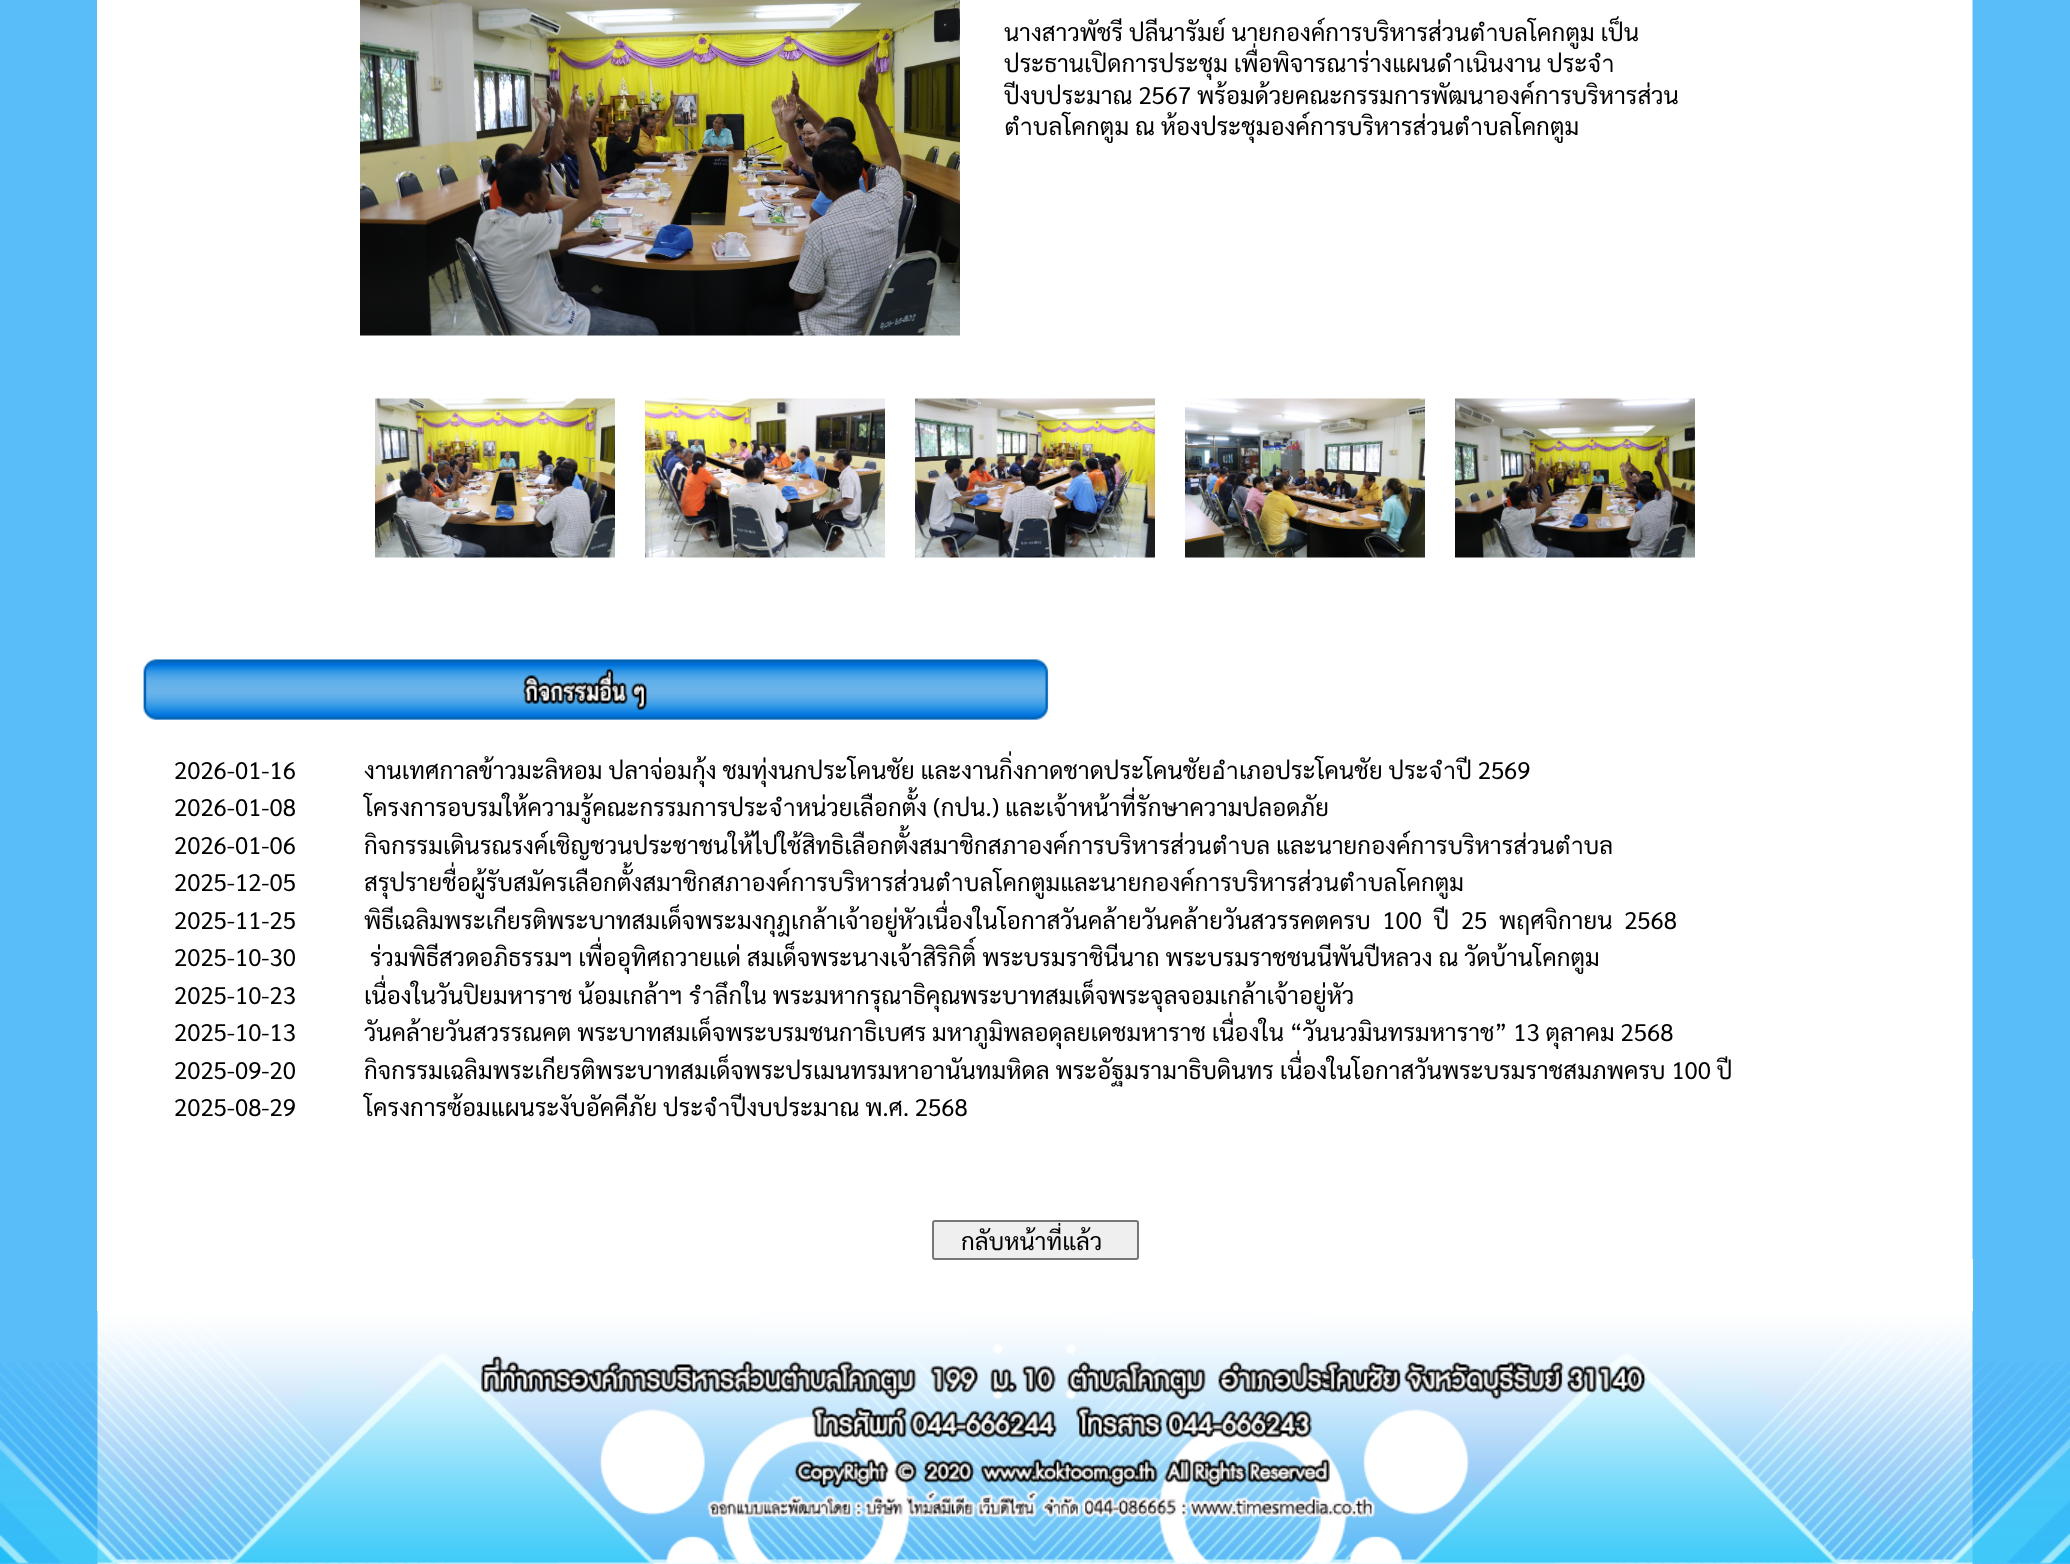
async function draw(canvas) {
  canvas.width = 2070
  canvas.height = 1564
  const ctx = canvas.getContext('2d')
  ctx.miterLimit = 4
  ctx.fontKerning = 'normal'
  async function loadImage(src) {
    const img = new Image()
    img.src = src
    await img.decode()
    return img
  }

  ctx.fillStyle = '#59bdfa'
  ctx.fillRect(0, 0, 2070, 1564)
  ctx.fillStyle = '#fff'
  ctx.fillRect(97, 0, 1875, 1259)
  ctx.drawImage(await loadImage('image0.png'), 360, 0, 600, 336)
  ctx.font = '24px Sarabun'
  ctx.fillStyle = '#000'
  ctx.fillText('นางสาวพัชรี ปลีนารัมย์ นายกองค์การบริหารส่วนตำบลโคกตูม เป็น', 1004, 41)
  ctx.fillText('ประธานเปิดการประชุม เพื่อพิจารณาร่างแผนดำเนินงาน ประจำ', 1004, 72)
  ctx.fillText('ปีงบประมาณ 2567 พร้อมด้วยคณะกรรมการพัฒนาองค์การบริหารส่วน', 1004, 104)
  ctx.fillText('ตำบลโคกตูม ณ ห้องประชุมองค์การบริหารส่วนตำบลโคกตูม', 1004, 135)
  ctx.drawImage(await loadImage('image1.png'), 375, 398, 240, 160)
  ctx.drawImage(await loadImage('image2.png'), 645, 398, 240, 160)
  ctx.drawImage(await loadImage('image3.png'), 915, 398, 240, 160)
  ctx.drawImage(await loadImage('image4.png'), 1185, 398, 240, 160)
  ctx.drawImage(await loadImage('image5.png'), 1455, 398, 240, 160)
  ctx.drawImage(await loadImage('image6.png'), 143, 659, 906, 61)
  ctx.fillText('2026-01-16', 174, 779)
  ctx.fillText('งานเทศกาลข้าวมะลิหอม ปลาจ่อมกุ้ง ชมทุ่งนกประโคนชัย และงานกิ่งกาดชาดประโคนชัยอำเภอประโคนชัย ประจำปี 2569', 364, 779)
  ctx.fillText('2026-01-08', 174, 816)
  ctx.fillText('โครงการอบรมให้ความรู้คณะกรรมการประจำหน่วยเลือกตั้ง (กปน.) และเจ้าหน้าที่รักษาความปลอดภัย', 364, 816)
  ctx.fillText('2026-01-06', 174, 854)
  ctx.fillText('กิจกรรมเดินรณรงค์เชิญชวนประชาชนให้ไปใช้สิทธิเลือกตั้งสมาชิกสภาองค์การบริหารส่วนตำบล และนายกองค์การบริหารส่วนตำบล', 364, 854)
  ctx.fillText('2025-12-05', 174, 891)
  ctx.fillText('สรุปรายชื่อผู้รับสมัครเลือกตั้งสมาชิกสภาองค์การบริหารส่วนตำบลโคกตูมและนายกองค์การบริหารส่วนตำบลโคกตูม', 364, 891)
  ctx.fillText('2025-11-25', 174, 929)
  ctx.fillText('พิธีเฉลิมพระเกียรติพระบาทสมเด็จพระมงกุฎเกล้าเจ้าอยู่หัวเนื่องในโอกาสวันคล้ายวันคล้ายวันสวรรคตครบ  100  ปี  25  พฤศจิกายน  2568', 364, 929)
  ctx.fillText('2025-10-30', 174, 966)
  ctx.fillText('ร่วมพิธีสวดอภิธรรมฯ เพื่ออุทิศถวายแด่ สมเด็จพระนางเจ้าสิริกิติ์ พระบรมราชินีนาถ พระบรมราชชนนีพันปีหลวง ณ วัดบ้านโคกตูม', 370, 966)
  ctx.fillText('2025-10-23', 174, 1004)
  ctx.fillText('เนื่องในวันปิยมหาราช น้อมเกล้าฯ รำลึกใน พระมหากรุณาธิคุณพระบาทสมเด็จพระจุลจอมเกล้าเจ้าอยู่หัว', 364, 1004)
  ctx.fillText('2025-10-13', 174, 1041)
  ctx.fillText('วันคล้ายวันสวรรณคต พระบาทสมเด็จพระบรมชนกาธิเบศร มหาภูมิพลอดุลยเดชมหาราช เนื่องใน “วันนวมินทรมหาราช” 13 ตุลาคม 2568', 364, 1041)
  ctx.fillText('2025-09-20', 174, 1079)
  ctx.fillText('กิจกรรมเฉลิมพระเกียรติพระบาทสมเด็จพระปรเมนทรมหาอานันทมหิดล พระอัฐมรามาธิบดินทร เนื่องในโอกาสวันพระบรมราชสมภพครบ 100 ปี', 364, 1079)
  ctx.fillText('2025-08-29', 174, 1116)
  ctx.fillText('โครงการซ้อมแผนระงับอัคคีภัย ประจำปีงบประมาณ พ.ศ. 2568', 364, 1116)
  ctx.fillStyle = '#acdefc'
  ctx.fillRect(1972, 0, 1, 1260)
  ctx.fillStyle = '#fff'
  ctx.fillRect(97, 1259, 1876, 52)
  ctx.fillStyle = '#efefef'
  ctx.beginPath()
  ctx.roundRect(933, 1221, 205, 38, 2)
  ctx.fill()
  ctx.strokeStyle = '#767676'
  ctx.lineWidth = 2
  ctx.stroke()
  ctx.save()
  ctx.beginPath()
  ctx.rect(935, 1223, 201, 34)
  ctx.clip()
  ctx.fillStyle = '#000'
  ctx.fillText('กลับหน้าที่แล้ว', 961, 1250)
  ctx.restore()
  ctx.drawImage(await loadImage('image7.png'), 0, 1362, 98, 202)
  ctx.drawImage(await loadImage('image9.png'), 1972, 1362, 98, 202)
  ctx.drawImage(await loadImage('image8.png'), 97, 1311, 1876, 253)
}

draw(document.querySelector('canvas'))
